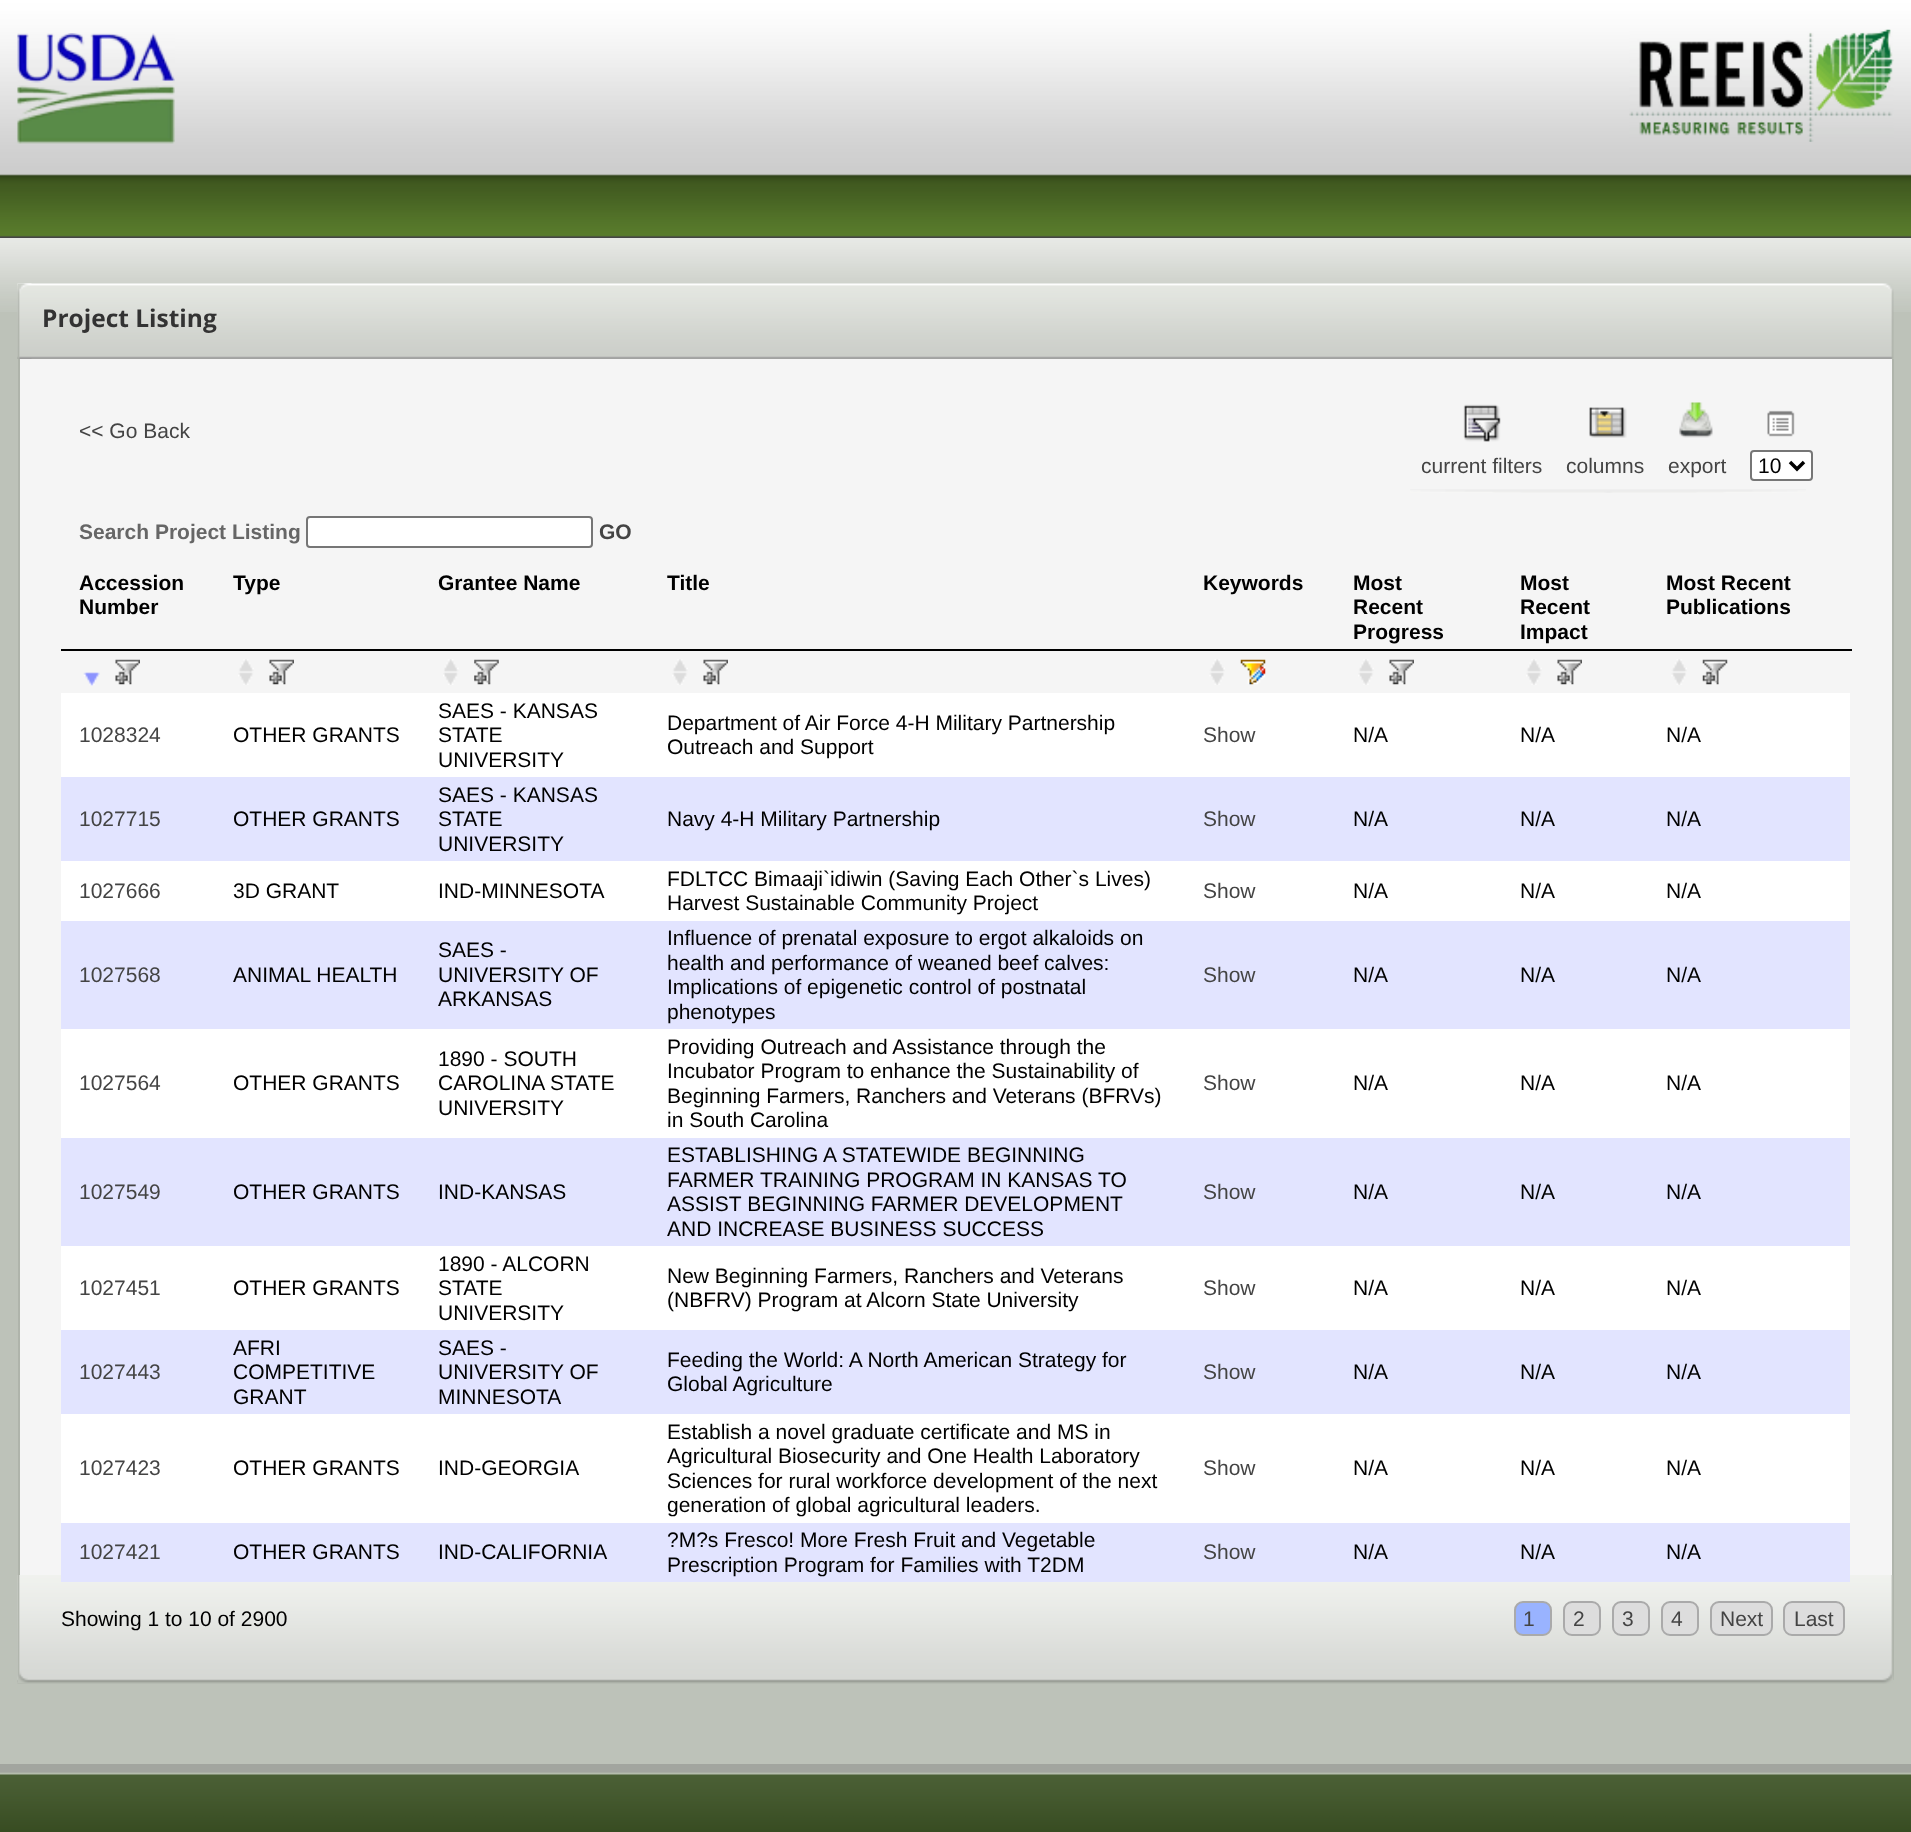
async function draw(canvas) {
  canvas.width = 1911
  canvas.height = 1832
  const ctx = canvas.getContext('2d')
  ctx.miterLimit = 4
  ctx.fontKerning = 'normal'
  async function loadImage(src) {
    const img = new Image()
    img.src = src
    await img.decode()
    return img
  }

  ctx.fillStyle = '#fff'
  ctx.fillRect(0, 0, 1911, 1832)
  ctx.drawImage(await loadImage('image0.png'), 0, 0, 1911, 238)
  ctx.drawImage(await loadImage('image1.png'), 17, 33, 158, 111)
  ctx.drawImage(await loadImage('image2.png'), 1629, 29, 265, 113)
  ctx.fillStyle = '#bdc2b9'
  ctx.fillRect(0, 312, 1911, 1452)
  ctx.drawImage(await loadImage('image3.png'), 0, 238, 1911, 74)
  ctx.drawImage(await loadImage('image4.png'), 17, 283, 1877, 76)
  ctx.drawImage(await loadImage('image5.png'), 17, 283, 15, 76)
  ctx.font = 'bold 24.5px Open Sans'
  ctx.fillStyle = '#333'
  ctx.fillText('Project Listing', 42, 327)
  ctx.fillStyle = '#f5f5f5'
  ctx.fillRect(20, 359, 1872, 1216)
  ctx.fillStyle = '#afb4ab'
  ctx.fillRect(1892, 359, 2, 1321)
  ctx.fillRect(18, 359, 2, 1216)
  ctx.font = '21px Liberation Sans'
  ctx.fillStyle = '#444'
  ctx.fillText('<< Go Back', 79, 438)
  ctx.drawImage(await loadImage('image6.png'), 1410, 489, 396, 4)
  ctx.drawImage(await loadImage('image7.png'), 1463, 404, 38, 38)
  ctx.fillText('current filters', 1421, 473)
  ctx.drawImage(await loadImage('image8.png'), 1589, 407, 38, 31)
  ctx.fillText('columns', 1566, 473)
  ctx.drawImage(await loadImage('image9.png'), 1679, 402, 34, 36)
  ctx.fillText('export', 1668, 473)
  ctx.drawImage(await loadImage('image10.png'), 1767, 410, 28, 27)
  ctx.fillStyle = '#fff'
  ctx.beginPath()
  ctx.roundRect(1751, 451, 61, 29, 3)
  ctx.fill()
  ctx.strokeStyle = '#767676'
  ctx.lineWidth = 2
  ctx.stroke()
  ctx.beginPath()
  ctx.moveTo(1790, 462)
  ctx.lineTo(1797, 469)
  ctx.lineTo(1804, 462)
  ctx.strokeStyle = '#000'
  ctx.lineWidth = 3.5
  ctx.stroke()
  ctx.fillStyle = '#000'
  ctx.fillText('10', 1758, 473)
  ctx.font = 'bold 21px Liberation Sans'
  ctx.fillStyle = '#666'
  ctx.fillText('Search Project Listing', 79, 539)
  ctx.fillStyle = '#fff'
  ctx.beginPath()
  ctx.roundRect(307, 517, 285, 30, 3)
  ctx.fill()
  ctx.strokeStyle = '#767676'
  ctx.lineWidth = 2
  ctx.stroke()
  ctx.fillStyle = '#444'
  ctx.fillText('GO', 599, 539)
  ctx.fillStyle = '#000'
  ctx.fillText('Accession', 79, 590)
  ctx.fillText('Number', 79, 614)
  ctx.fillText('Type', 233, 590)
  ctx.fillText('Grantee Name', 438, 590)
  ctx.fillText('Title', 667, 590)
  ctx.fillText('Keywords', 1203, 590)
  ctx.fillText('Most', 1353, 590)
  ctx.fillText('Recent', 1353, 614)
  ctx.fillText('Progress', 1353, 639)
  ctx.fillText('Most', 1520, 590)
  ctx.fillText('Recent', 1520, 614)
  ctx.fillText('Impact', 1520, 639)
  ctx.fillRect(61, 649, 1791, 2)
  ctx.fillText('Most Recent', 1666, 590)
  ctx.fillText('Publications', 1666, 614)
  ctx.drawImage(await loadImage('image11.png'), 83, 672, 17, 14)
  ctx.drawImage(await loadImage('image12.png'), 115, 659, 25, 26)
  ctx.drawImage(await loadImage('image13.png'), 238, 659, 16, 26)
  ctx.drawImage(await loadImage('image14.png'), 269, 659, 25, 26)
  ctx.drawImage(await loadImage('image15.png'), 443, 659, 16, 26)
  ctx.drawImage(await loadImage('image16.png'), 474, 659, 25, 26)
  ctx.drawImage(await loadImage('image13.png'), 672, 659, 16, 26)
  ctx.drawImage(await loadImage('image17.png'), 703, 659, 25, 26)
  ctx.drawImage(await loadImage('image18.png'), 1209, 659, 16, 26)
  ctx.drawImage(await loadImage('image19.png'), 1240, 659, 26, 26)
  ctx.drawImage(await loadImage('image20.png'), 1358, 659, 16, 26)
  ctx.drawImage(await loadImage('image17.png'), 1389, 659, 25, 26)
  ctx.drawImage(await loadImage('image13.png'), 1526, 659, 16, 26)
  ctx.drawImage(await loadImage('image14.png'), 1557, 659, 25, 26)
  ctx.drawImage(await loadImage('image18.png'), 1671, 659, 16, 26)
  ctx.drawImage(await loadImage('image21.png'), 1702, 659, 26, 26)
  ctx.fillStyle = '#fff'
  ctx.fillRect(61, 693, 1789, 84)
  ctx.font = '21px Liberation Sans'
  ctx.fillStyle = '#444'
  ctx.fillText('1028324', 79, 742)
  ctx.fillStyle = '#000'
  ctx.fillText('OTHER GRANTS', 233, 742)
  ctx.fillText('SAES - KANSAS', 438, 718)
  ctx.fillText('STATE', 438, 742)
  ctx.fillText('UNIVERSITY', 438, 767)
  ctx.fillText('Department of Air Force 4-H Military Partnership', 667, 730)
  ctx.fillText('Outreach and Support', 667, 754)
  ctx.fillStyle = '#444'
  ctx.fillText('Show', 1203, 742)
  ctx.fillStyle = '#000'
  ctx.fillText('N/A', 1353, 742)
  ctx.fillText('N/A', 1520, 742)
  ctx.fillText('N/A', 1666, 742)
  ctx.fillStyle = '#e2e4ff'
  ctx.fillRect(61, 777, 1789, 84)
  ctx.fillStyle = '#444'
  ctx.fillText('1027715', 79, 826)
  ctx.fillStyle = '#000'
  ctx.fillText('OTHER GRANTS', 233, 826)
  ctx.fillText('SAES - KANSAS', 438, 802)
  ctx.fillText('STATE', 438, 826)
  ctx.fillText('UNIVERSITY', 438, 851)
  ctx.fillText('Navy 4-H Military Partnership', 667, 826)
  ctx.fillStyle = '#444'
  ctx.fillText('Show', 1203, 826)
  ctx.fillStyle = '#000'
  ctx.fillText('N/A', 1353, 826)
  ctx.fillText('N/A', 1520, 826)
  ctx.fillText('N/A', 1666, 826)
  ctx.fillStyle = '#fff'
  ctx.fillRect(61, 861, 1789, 60)
  ctx.fillStyle = '#444'
  ctx.fillText('1027666', 79, 898)
  ctx.fillStyle = '#000'
  ctx.fillText('3D GRANT', 233, 898)
  ctx.fillText('IND-MINNESOTA', 438, 898)
  ctx.fillText('FDLTCC Bimaaji`idiwin (Saving Each Other`s Lives)', 667, 886)
  ctx.fillText('Harvest Sustainable Community Project', 667, 910)
  ctx.fillStyle = '#444'
  ctx.fillText('Show', 1203, 898)
  ctx.fillStyle = '#000'
  ctx.fillText('N/A', 1353, 898)
  ctx.fillText('N/A', 1520, 898)
  ctx.fillText('N/A', 1666, 898)
  ctx.fillStyle = '#e2e4ff'
  ctx.fillRect(61, 921, 1789, 108)
  ctx.fillStyle = '#444'
  ctx.fillText('1027568', 79, 982)
  ctx.fillStyle = '#000'
  ctx.fillText('ANIMAL HEALTH', 233, 982)
  ctx.fillText('SAES -', 438, 957)
  ctx.fillText('UNIVERSITY OF', 438, 982)
  ctx.fillText('ARKANSAS', 438, 1006)
  ctx.fillText('Influence of prenatal exposure to ergot alkaloids on', 667, 945)
  ctx.fillText('health and performance of weaned beef calves:', 667, 970)
  ctx.fillText('Implications of epigenetic control of postnatal', 667, 994)
  ctx.fillText('phenotypes', 667, 1019)
  ctx.fillStyle = '#444'
  ctx.fillText('Show', 1203, 982)
  ctx.fillStyle = '#000'
  ctx.fillText('N/A', 1353, 982)
  ctx.fillText('N/A', 1520, 982)
  ctx.fillText('N/A', 1666, 982)
  ctx.fillStyle = '#fff'
  ctx.fillRect(61, 1029, 1789, 109)
  ctx.fillStyle = '#444'
  ctx.fillText('1027564', 79, 1090)
  ctx.fillStyle = '#000'
  ctx.fillText('OTHER GRANTS', 233, 1090)
  ctx.fillText('1890 - SOUTH', 438, 1066)
  ctx.fillText('CAROLINA STATE', 438, 1090)
  ctx.fillText('UNIVERSITY', 438, 1115)
  ctx.fillText('Providing Outreach and Assistance through the', 667, 1054)
  ctx.fillText('Incubator Program to enhance the Sustainability of', 667, 1078)
  ctx.fillText('Beginning Farmers, Ranchers and Veterans (BFRVs)', 667, 1103)
  ctx.fillText('in South Carolina', 667, 1127)
  ctx.fillStyle = '#444'
  ctx.fillText('Show', 1203, 1090)
  ctx.fillStyle = '#000'
  ctx.fillText('N/A', 1353, 1090)
  ctx.fillText('N/A', 1520, 1090)
  ctx.fillText('N/A', 1666, 1090)
  ctx.fillStyle = '#e2e4ff'
  ctx.fillRect(61, 1138, 1789, 108)
  ctx.fillStyle = '#444'
  ctx.fillText('1027549', 79, 1199)
  ctx.fillStyle = '#000'
  ctx.fillText('OTHER GRANTS', 233, 1199)
  ctx.fillText('IND-KANSAS', 438, 1199)
  ctx.fillText('ESTABLISHING A STATEWIDE BEGINNING', 667, 1162)
  ctx.fillText('FARMER TRAINING PROGRAM IN KANSAS TO', 667, 1187)
  ctx.fillText('ASSIST BEGINNING FARMER DEVELOPMENT', 667, 1211)
  ctx.fillText('AND INCREASE BUSINESS SUCCESS', 667, 1236)
  ctx.fillStyle = '#444'
  ctx.fillText('Show', 1203, 1199)
  ctx.fillStyle = '#000'
  ctx.fillText('N/A', 1353, 1199)
  ctx.fillText('N/A', 1520, 1199)
  ctx.fillText('N/A', 1666, 1199)
  ctx.fillStyle = '#fff'
  ctx.fillRect(61, 1246, 1789, 84)
  ctx.fillStyle = '#444'
  ctx.fillText('1027451', 79, 1295)
  ctx.fillStyle = '#000'
  ctx.fillText('OTHER GRANTS', 233, 1295)
  ctx.fillText('1890 - ALCORN', 438, 1271)
  ctx.fillText('STATE', 438, 1295)
  ctx.fillText('UNIVERSITY', 438, 1320)
  ctx.fillText('New Beginning Farmers, Ranchers and Veterans', 667, 1283)
  ctx.fillText('(NBFRV) Program at Alcorn State University', 667, 1307)
  ctx.fillStyle = '#444'
  ctx.fillText('Show', 1203, 1295)
  ctx.fillStyle = '#000'
  ctx.fillText('N/A', 1353, 1295)
  ctx.fillText('N/A', 1520, 1295)
  ctx.fillText('N/A', 1666, 1295)
  ctx.fillStyle = '#e2e4ff'
  ctx.fillRect(61, 1330, 1789, 84)
  ctx.fillStyle = '#444'
  ctx.fillText('1027443', 79, 1379)
  ctx.fillStyle = '#000'
  ctx.fillText('AFRI', 233, 1355)
  ctx.fillText('COMPETITIVE', 233, 1379)
  ctx.fillText('GRANT', 233, 1404)
  ctx.fillText('SAES -', 438, 1355)
  ctx.fillText('UNIVERSITY OF', 438, 1379)
  ctx.fillText('MINNESOTA', 438, 1404)
  ctx.fillText('Feeding the World: A North American Strategy for', 667, 1367)
  ctx.fillText('Global Agriculture', 667, 1391)
  ctx.fillStyle = '#444'
  ctx.fillText('Show', 1203, 1379)
  ctx.fillStyle = '#000'
  ctx.fillText('N/A', 1353, 1379)
  ctx.fillText('N/A', 1520, 1379)
  ctx.fillText('N/A', 1666, 1379)
  ctx.fillStyle = '#fff'
  ctx.fillRect(61, 1414, 1789, 109)
  ctx.fillStyle = '#444'
  ctx.fillText('1027423', 79, 1475)
  ctx.fillStyle = '#000'
  ctx.fillText('OTHER GRANTS', 233, 1475)
  ctx.fillText('IND-GEORGIA', 438, 1475)
  ctx.fillText('Establish a novel graduate certificate and MS in', 667, 1439)
  ctx.fillText('Agricultural Biosecurity and One Health Laboratory', 667, 1463)
  ctx.fillText('Sciences for rural workforce development of the next', 667, 1488)
  ctx.fillText('generation of global agricultural leaders.', 667, 1512)
  ctx.fillStyle = '#444'
  ctx.fillText('Show', 1203, 1475)
  ctx.fillStyle = '#000'
  ctx.fillText('N/A', 1353, 1475)
  ctx.fillText('N/A', 1520, 1475)
  ctx.fillText('N/A', 1666, 1475)
  ctx.drawImage(await loadImage('image22.png'), 17, 1575, 1877, 109)
  ctx.fillStyle = '#e2e4ff'
  ctx.fillRect(61, 1523, 1789, 59)
  ctx.fillStyle = '#444'
  ctx.fillText('1027421', 79, 1559)
  ctx.fillStyle = '#000'
  ctx.fillText('OTHER GRANTS', 233, 1559)
  ctx.fillText('IND-CALIFORNIA', 438, 1559)
  ctx.fillText('?M?s Fresco! More Fresh Fruit and Vegetable', 667, 1547)
  ctx.fillText('Prescription Program for Families with T2DM', 667, 1572)
  ctx.fillStyle = '#444'
  ctx.fillText('Show', 1203, 1559)
  ctx.fillStyle = '#000'
  ctx.fillText('N/A', 1353, 1559)
  ctx.fillText('N/A', 1520, 1559)
  ctx.fillText('N/A', 1666, 1559)
  ctx.fillText('Showing 1 to 10 of 2900', 61, 1626)
  ctx.fillStyle = '#99b3ff'
  ctx.beginPath()
  ctx.roundRect(1515, 1602, 36, 33, 8)
  ctx.fill()
  ctx.strokeStyle = '#aaa'
  ctx.stroke()
  ctx.fillStyle = '#444'
  ctx.fillText('1', 1523, 1626)
  ctx.fillStyle = '#ddd'
  ctx.beginPath()
  ctx.roundRect(1564, 1602, 36, 33, 8)
  ctx.fill()
  ctx.stroke()
  ctx.fillStyle = '#444'
  ctx.fillText('2', 1573, 1626)
  ctx.fillStyle = '#ddd'
  ctx.beginPath()
  ctx.roundRect(1613, 1602, 36, 33, 8)
  ctx.fill()
  ctx.stroke()
  ctx.fillStyle = '#444'
  ctx.fillText('3', 1622, 1626)
  ctx.fillStyle = '#ddd'
  ctx.beginPath()
  ctx.roundRect(1662, 1602, 36, 33, 8)
  ctx.fill()
  ctx.stroke()
  ctx.fillStyle = '#444'
  ctx.fillText('4', 1671, 1626)
  ctx.fillStyle = '#ddd'
  ctx.beginPath()
  ctx.roundRect(1711, 1602, 61, 33, 8)
  ctx.fill()
  ctx.stroke()
  ctx.fillStyle = '#444'
  ctx.fillText('Next', 1720, 1626)
  ctx.fillStyle = '#ddd'
  ctx.beginPath()
  ctx.roundRect(1784, 1602, 60, 33, 8)
  ctx.fill()
  ctx.stroke()
  ctx.fillStyle = '#444'
  ctx.fillText('Last', 1794, 1626)
  ctx.drawImage(await loadImage('image23.png'), 17, 1575, 11, 108)
  ctx.drawImage(await loadImage('image24.png'), 0, 1764, 1911, 68)
}

draw(document.querySelector('canvas'))
